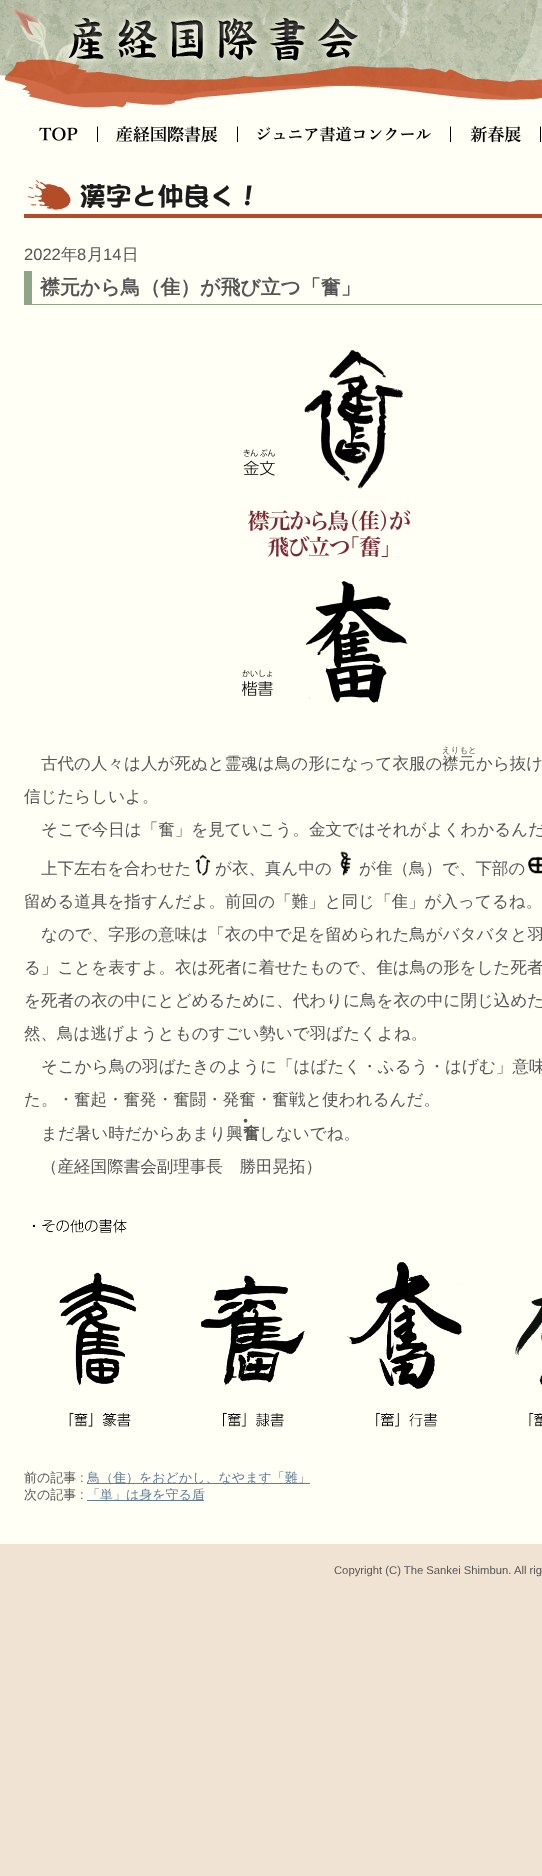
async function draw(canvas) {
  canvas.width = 542
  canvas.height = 1876
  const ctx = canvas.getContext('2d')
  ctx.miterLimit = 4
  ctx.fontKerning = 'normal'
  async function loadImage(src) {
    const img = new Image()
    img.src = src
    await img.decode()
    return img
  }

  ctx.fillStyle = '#f0e3d4'
  ctx.fillRect(0, 0, 542, 1876)
  ctx.fillStyle = '#fffff5'
  ctx.fillRect(0, 112, 542, 1432)
  ctx.drawImage(await loadImage('image0.png'), 0, 0, 542, 112)
  ctx.drawImage(await loadImage('image1.png'), 39, 126, 59, 16)
  ctx.drawImage(await loadImage('image2.png'), 116, 126, 122, 17)
  ctx.drawImage(await loadImage('image3.png'), 257, 126, 194, 16)
  ctx.drawImage(await loadImage('image4.png'), 470, 126, 71, 17)
  ctx.drawImage(await loadImage('image5.png'), 24, 180, 518, 38)
  ctx.font = '16.55px Liberation Sans'
  ctx.fillStyle = '#555'
  ctx.fillText('2022', 24, 260)
  ctx.font = '500 16.55px WenQuanYi Zen Hei'
  ctx.fillText('年', 61, 260)
  ctx.font = '16.55px Liberation Sans'
  ctx.fillText('8', 77, 260)
  ctx.font = '500 16.55px WenQuanYi Zen Hei'
  ctx.fillText('月', 87, 260)
  ctx.font = '16.55px Liberation Sans'
  ctx.fillText('14', 103, 260)
  ctx.font = '500 16.55px WenQuanYi Zen Hei'
  ctx.fillText('日', 122, 260)
  ctx.fillStyle = '#90a586'
  ctx.fillRect(24, 304, 518, 1)
  ctx.fillRect(24, 271, 8, 34)
  ctx.font = 'bold 19.9px WenQuanYi Zen Hei'
  ctx.fillStyle = '#555'
  ctx.fillText('襟元から鳥（隹）が飛び立つ「奮」', 40, 294)
  ctx.drawImage(await loadImage('image6.png'), 241, 350, 170, 353)
  ctx.font = '500 16.55px WenQuanYi Zen Hei'
  ctx.fillText('古代の人々は人が死ぬと霊魂は鳥の形になって衣服の', 41, 769)
  ctx.font = '500 8.5px WenQuanYi Zen Hei'
  ctx.fillText('えりもと', 442, 753)
  ctx.font = '500 16.55px WenQuanYi Zen Hei'
  ctx.fillText('襟元', 442, 769)
  ctx.fillText('から抜け', 476, 769)
  ctx.fillText('信じたらしいよ。', 24, 802)
  ctx.fillText('そこで今日は「奮」を見ていこう。金文ではそれがよくわかるんだ', 41, 835)
  ctx.fillText('上下左右を合わせた', 41, 874)
  ctx.drawImage(await loadImage('image7.png'), 195, 854, 16, 22)
  ctx.fillText('が衣、真ん中の', 215, 874)
  ctx.drawImage(await loadImage('image8.png'), 340, 851, 12, 25)
  ctx.fillText('が隹（鳥）で、下部の', 359, 874)
  ctx.drawImage(await loadImage('image9.png'), 528, 856, 14, 18)
  ctx.fillText('留める道具を指すんだよ。前回の「難」と同じ「隹」が入ってるね。', 24, 907)
  ctx.fillText('なので、字形の意味は「衣の中で足を留められた鳥がバタバタと羽', 41, 940)
  ctx.fillText('る」ことを表すよ。衣は死者に着せたもので、隹は鳥の形をした死者', 24, 973)
  ctx.fillText('を死者の衣の中にとどめるために、代わりに鳥を衣の中に閉じ込めた', 24, 1006)
  ctx.fillText('然、鳥は逃げようとものすごい勢いで羽ばたくよね。', 24, 1039)
  ctx.fillText('そこから鳥の羽ばたきのように「はばたく・ふるう・はげむ」意味', 41, 1072)
  ctx.fillText('た。・奮起・奮発・奮闘・発奮・奮戦と使われるんだ。', 24, 1105)
  ctx.fillText('まだ暑い時だからあまり興', 41, 1139)
  ctx.font = 'bold 8.5px Liberation Sans'
  ctx.fillText('●', 243, 1123)
  ctx.font = 'bold 16.55px WenQuanYi Zen Hei'
  ctx.fillText('奮', 243, 1139)
  ctx.font = '500 16.55px WenQuanYi Zen Hei'
  ctx.fillText('しないでね。', 259, 1139)
  ctx.fillText('（産経国際書会副理事長　勝田晃拓）', 41, 1172)
  ctx.drawImage(await loadImage('image10.png'), 32, 1219, 510, 208)
  ctx.font = '500 13px WenQuanYi Zen Hei'
  ctx.fillText('前の記事', 24, 1482)
  ctx.font = '13px Liberation Sans'
  ctx.fillText(':', 80, 1482)
  ctx.fillStyle = '#617d98'
  ctx.fillRect(87, 1483, 223, 1)
  ctx.font = '500 13px WenQuanYi Zen Hei'
  ctx.fillText('鳥（隹）をおどかし、なやます「難」', 87, 1482)
  ctx.fillStyle = '#555'
  ctx.fillText('次の記事', 24, 1499)
  ctx.font = '13px Liberation Sans'
  ctx.fillText(':', 80, 1499)
  ctx.fillStyle = '#617d98'
  ctx.fillRect(87, 1500, 117, 1)
  ctx.font = '500 13px WenQuanYi Zen Hei'
  ctx.fillText('「単」は身を守る盾', 87, 1499)
  ctx.font = '11.25px Liberation Sans'
  ctx.fillStyle = '#555'
  ctx.fillText('Copyright (C) The Sankei Shimbun. All rig', 334, 1574)
}

draw(document.querySelector('canvas'))
